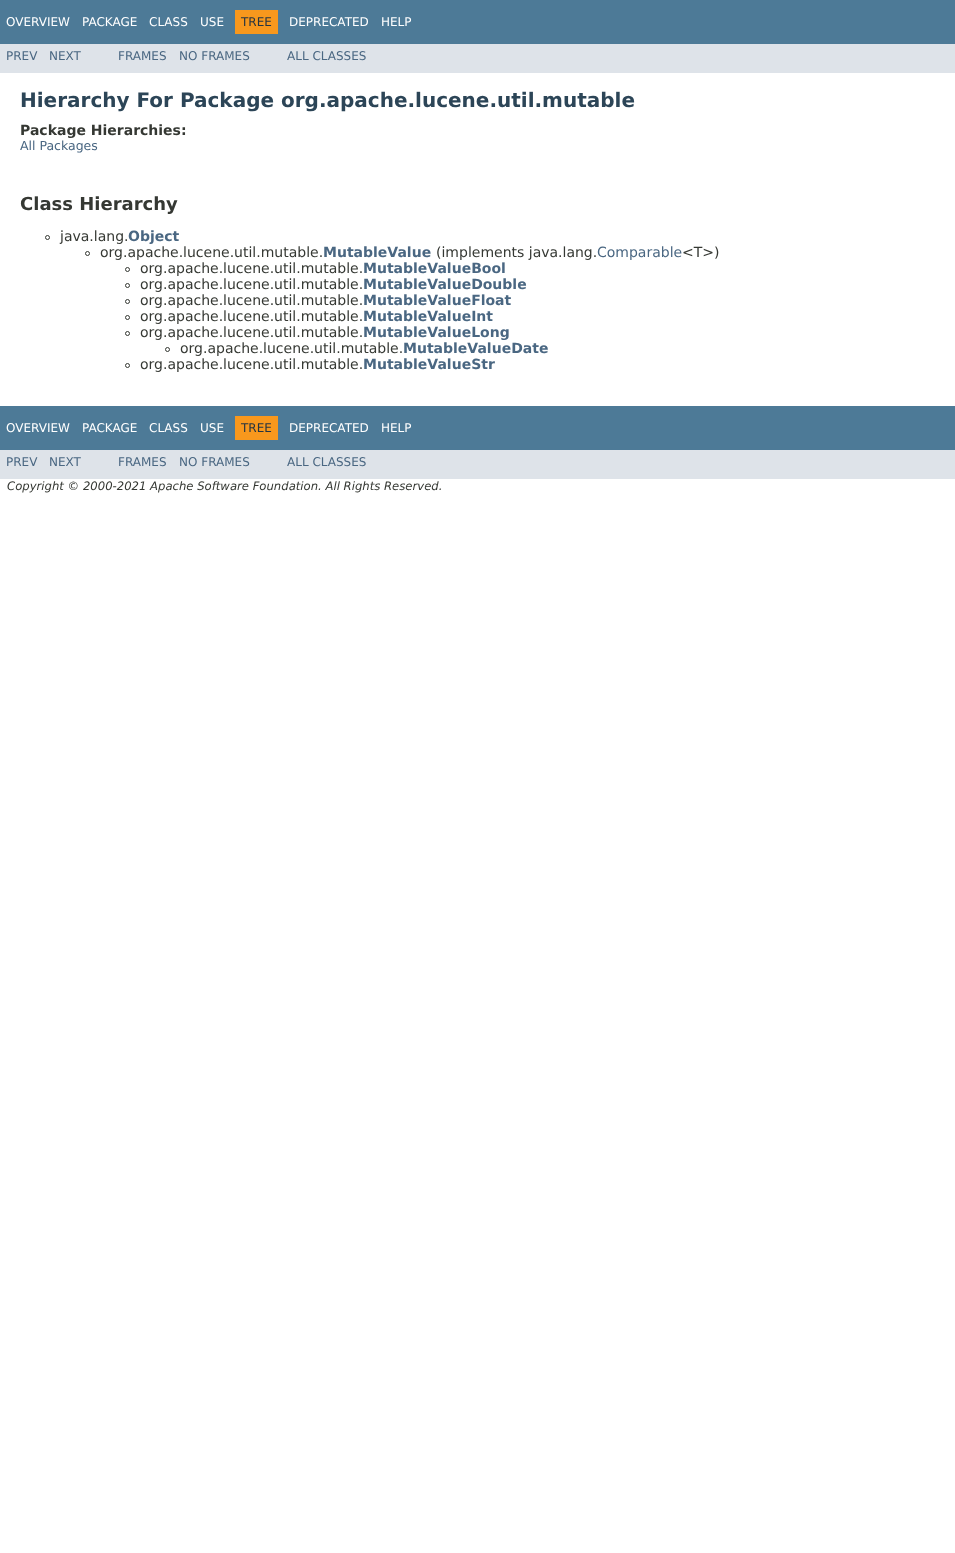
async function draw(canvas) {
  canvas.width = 955
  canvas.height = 1553
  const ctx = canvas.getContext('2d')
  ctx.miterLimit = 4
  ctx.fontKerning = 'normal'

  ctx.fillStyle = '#fff'
  ctx.fillRect(0, 0, 955, 1553)
  ctx.fillStyle = '#4d7a97'
  ctx.fillRect(0, 0, 955, 44)
  ctx.font = '12px DejaVu Sans'
  ctx.fillStyle = '#fff'
  ctx.fillText('OVERVIEW', 6, 26)
  ctx.fillText('PACKAGE', 82, 26)
  ctx.fillText('CLASS', 149, 26)
  ctx.fillText('USE', 200, 26)
  ctx.fillStyle = '#f8981d'
  ctx.fillRect(235, 10, 43, 24)
  ctx.fillStyle = '#253441'
  ctx.fillText('TREE', 241, 26)
  ctx.fillStyle = '#fff'
  ctx.fillText('DEPRECATED', 289, 26)
  ctx.fillText('HELP', 381, 26)
  ctx.fillStyle = '#dee3e9'
  ctx.fillRect(0, 44, 955, 29)
  ctx.fillStyle = '#4a6782'
  ctx.fillText('PREV', 6, 60)
  ctx.fillText('NEXT', 49, 60)
  ctx.fillText('FRAMES', 118, 60)
  ctx.fillText('NO FRAMES', 179, 60)
  ctx.fillText('ALL CLASSES', 287, 60)
  ctx.font = 'bold 20px DejaVu Sans'
  ctx.fillStyle = '#2c4557'
  ctx.fillText('Hierarchy For Package org.apache.lucene.util.mutable', 20, 107)
  ctx.font = 'bold 14px DejaVu Sans'
  ctx.fillStyle = '#353833'
  ctx.fillText('Package Hierarchies:', 20, 135)
  ctx.font = '12.5px DejaVu Sans'
  ctx.fillStyle = '#4a6782'
  ctx.fillText('All Packages', 20, 150)
  ctx.font = 'bold 18px DejaVu Sans'
  ctx.fillStyle = '#353833'
  ctx.fillText('Class Hierarchy', 20, 210)
  ctx.beginPath()
  ctx.arc(47.5, 237.5, 2, 0, 2 * Math.PI)
  ctx.strokeStyle = '#353833'
  ctx.stroke()
  ctx.font = '14px DejaVu Sans'
  ctx.fillText('java.lang.', 60, 241)
  ctx.font = 'bold 14px DejaVu Sans'
  ctx.fillStyle = '#4a6782'
  ctx.fillText('Object', 128, 241)
  ctx.beginPath()
  ctx.arc(87.5, 253.5, 2, 0, 2 * Math.PI)
  ctx.stroke()
  ctx.font = '14px DejaVu Sans'
  ctx.fillStyle = '#353833'
  ctx.fillText('org.apache.lucene.util.mutable.', 100, 257)
  ctx.font = 'bold 14px DejaVu Sans'
  ctx.fillStyle = '#4a6782'
  ctx.fillText('MutableValue', 323, 257)
  ctx.font = '14px DejaVu Sans'
  ctx.fillStyle = '#353833'
  ctx.fillText('(implements java.lang.', 436, 257)
  ctx.fillStyle = '#4a6782'
  ctx.fillText('Comparable', 597, 257)
  ctx.fillStyle = '#353833'
  ctx.fillText('<T>)', 682, 257)
  ctx.beginPath()
  ctx.arc(127.5, 269.5, 2, 0, 2 * Math.PI)
  ctx.stroke()
  ctx.fillText('org.apache.lucene.util.mutable.', 140, 273)
  ctx.font = 'bold 14px DejaVu Sans'
  ctx.fillStyle = '#4a6782'
  ctx.fillText('MutableValueBool', 363, 273)
  ctx.beginPath()
  ctx.arc(127.5, 285.5, 2, 0, 2 * Math.PI)
  ctx.stroke()
  ctx.font = '14px DejaVu Sans'
  ctx.fillStyle = '#353833'
  ctx.fillText('org.apache.lucene.util.mutable.', 140, 289)
  ctx.font = 'bold 14px DejaVu Sans'
  ctx.fillStyle = '#4a6782'
  ctx.fillText('MutableValueDouble', 363, 289)
  ctx.beginPath()
  ctx.arc(127.5, 301.5, 2, 0, 2 * Math.PI)
  ctx.stroke()
  ctx.font = '14px DejaVu Sans'
  ctx.fillStyle = '#353833'
  ctx.fillText('org.apache.lucene.util.mutable.', 140, 305)
  ctx.font = 'bold 14px DejaVu Sans'
  ctx.fillStyle = '#4a6782'
  ctx.fillText('MutableValueFloat', 363, 305)
  ctx.beginPath()
  ctx.arc(127.5, 317.5, 2, 0, 2 * Math.PI)
  ctx.stroke()
  ctx.font = '14px DejaVu Sans'
  ctx.fillStyle = '#353833'
  ctx.fillText('org.apache.lucene.util.mutable.', 140, 321)
  ctx.font = 'bold 14px DejaVu Sans'
  ctx.fillStyle = '#4a6782'
  ctx.fillText('MutableValueInt', 363, 321)
  ctx.beginPath()
  ctx.arc(127.5, 333.5, 2, 0, 2 * Math.PI)
  ctx.stroke()
  ctx.font = '14px DejaVu Sans'
  ctx.fillStyle = '#353833'
  ctx.fillText('org.apache.lucene.util.mutable.', 140, 337)
  ctx.font = 'bold 14px DejaVu Sans'
  ctx.fillStyle = '#4a6782'
  ctx.fillText('MutableValueLong', 363, 337)
  ctx.beginPath()
  ctx.arc(167.5, 349.5, 2, 0, 2 * Math.PI)
  ctx.stroke()
  ctx.font = '14px DejaVu Sans'
  ctx.fillStyle = '#353833'
  ctx.fillText('org.apache.lucene.util.mutable.', 180, 353)
  ctx.font = 'bold 14px DejaVu Sans'
  ctx.fillStyle = '#4a6782'
  ctx.fillText('MutableValueDate', 403, 353)
  ctx.beginPath()
  ctx.arc(127.5, 365.5, 2, 0, 2 * Math.PI)
  ctx.stroke()
  ctx.font = '14px DejaVu Sans'
  ctx.fillStyle = '#353833'
  ctx.fillText('org.apache.lucene.util.mutable.', 140, 369)
  ctx.font = 'bold 14px DejaVu Sans'
  ctx.fillStyle = '#4a6782'
  ctx.fillText('MutableValueStr', 363, 369)
  ctx.fillStyle = '#4d7a97'
  ctx.fillRect(0, 406, 955, 44)
  ctx.font = '12px DejaVu Sans'
  ctx.fillStyle = '#fff'
  ctx.fillText('OVERVIEW', 6, 432)
  ctx.fillText('PACKAGE', 82, 432)
  ctx.fillText('CLASS', 149, 432)
  ctx.fillText('USE', 200, 432)
  ctx.fillStyle = '#f8981d'
  ctx.fillRect(235, 416, 43, 24)
  ctx.fillStyle = '#253441'
  ctx.fillText('TREE', 241, 432)
  ctx.fillStyle = '#fff'
  ctx.fillText('DEPRECATED', 289, 432)
  ctx.fillText('HELP', 381, 432)
  ctx.fillStyle = '#dee3e9'
  ctx.fillRect(0, 450, 955, 29)
  ctx.fillStyle = '#4a6782'
  ctx.fillText('PREV', 6, 466)
  ctx.fillText('NEXT', 49, 466)
  ctx.fillText('FRAMES', 118, 466)
  ctx.fillText('NO FRAMES', 179, 466)
  ctx.fillText('ALL CLASSES', 287, 466)
  ctx.font = 'italic 11.65px DejaVu Sans'
  ctx.fillStyle = '#353833'
  ctx.fillText('Copyright © 2000-2021 Apache Software Foundation. All Rights Reserved.', 7, 490)
}

draw(document.querySelector('canvas'))
